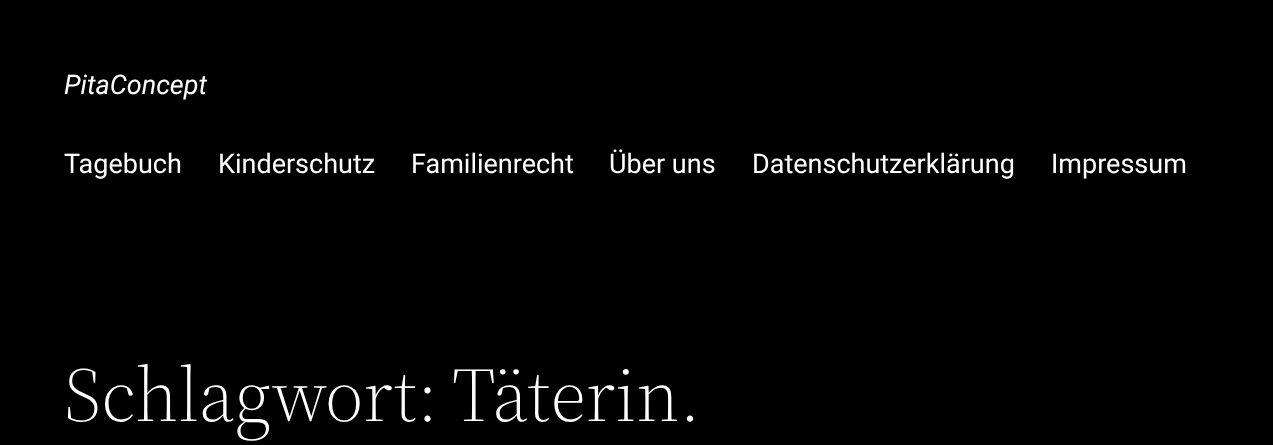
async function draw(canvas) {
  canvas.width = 1273
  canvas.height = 445
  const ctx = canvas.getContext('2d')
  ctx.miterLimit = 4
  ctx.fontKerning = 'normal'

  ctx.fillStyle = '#000'
  ctx.fillRect(0, 0, 1273, 445)
  ctx.font = 'italic 27px Roboto'
  ctx.fillStyle = '#fff'
  ctx.fillText('PitaConcept', 64, 94)
  ctx.font = '27px Roboto'
  ctx.fillText('Tagebuch', 64, 173)
  ctx.fillText('Kinderschutz', 218, 173)
  ctx.fillText('Familienrecht', 411, 173)
  ctx.fillText('Über uns', 609, 173)
  ctx.fillText('Datenschutzerklärung', 752, 173)
  ctx.fillText('Impressum', 1051, 173)
  ctx.font = '300 76.5px "Source Serif 4"'
  ctx.fillText('Schlagwort:', 64, 421)
  ctx.fillText('Täterin.', 452, 421)
}

draw(document.querySelector('canvas'))
